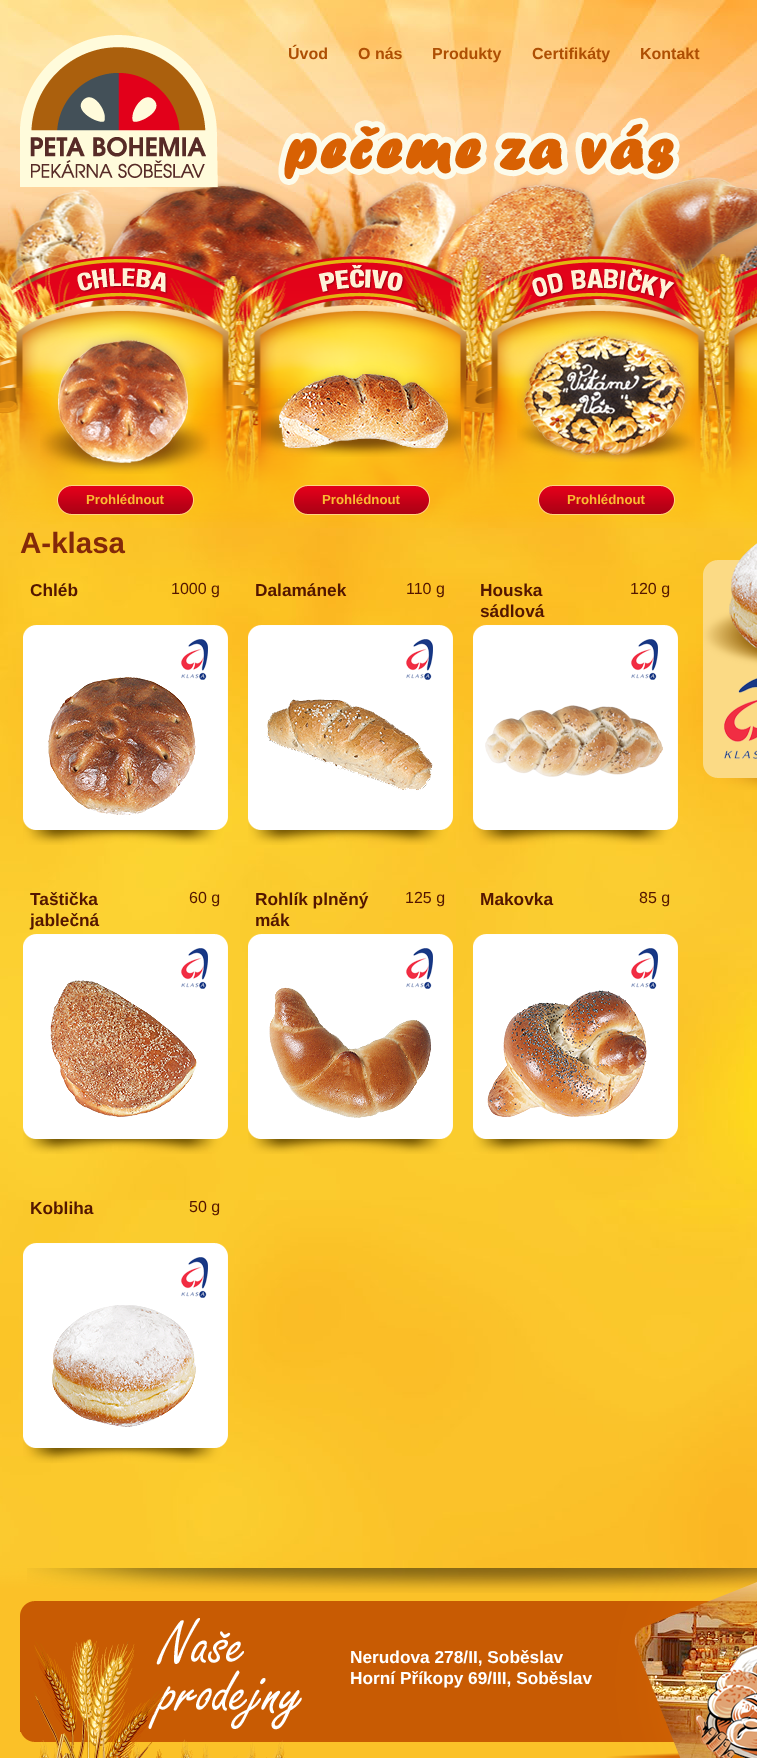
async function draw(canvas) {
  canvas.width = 757
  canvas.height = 1758
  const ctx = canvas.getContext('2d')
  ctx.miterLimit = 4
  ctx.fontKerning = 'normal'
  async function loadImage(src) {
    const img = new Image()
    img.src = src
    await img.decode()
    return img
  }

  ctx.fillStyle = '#fbc128'
  ctx.fillRect(0, 0, 757, 1758)
  ctx.drawImage(await loadImage('image0.png'), 0, 1200, 757, 388)
  ctx.drawImage(await loadImage('image1.png'), 0, 0, 757, 200)
  ctx.drawImage(await loadImage('image2.png'), 0, 200, 757, 188)
  ctx.drawImage(await loadImage('image3.png'), 0, 431, 757, 169)
  ctx.drawImage(await loadImage('image4.png'), 0, 600, 757, 200)
  ctx.drawImage(await loadImage('image5.png'), 0, 800, 757, 200)
  ctx.drawImage(await loadImage('image6.png'), 0, 1000, 757, 200)
  ctx.drawImage(await loadImage('image7.png'), 0, 177, 757, 345)
  ctx.drawImage(await loadImage('image8.png'), 20, 35, 198, 152)
  ctx.font = 'bold 16px Liberation Sans'
  ctx.fillStyle = '#ae4f04'
  ctx.fillText('Úvod', 288, 59)
  ctx.fillText('O nás', 358, 59)
  ctx.fillText('Produkty', 432, 59)
  ctx.fillText('Certifikáty', 532, 59)
  ctx.fillText('Kontakt', 640, 59)
  ctx.drawImage(await loadImage('image9.png'), 278, 117, 402, 68)
  ctx.drawImage(await loadImage('image10.png'), 40, 268, 170, 206)
  ctx.drawImage(await loadImage('image11.png'), 57, 485, 137, 30)
  ctx.font = 'bold 13.25px Liberation Sans'
  ctx.fillStyle = '#f9bc32'
  ctx.fillText('Prohlédnout', 86, 504)
  ctx.drawImage(await loadImage('image12.png'), 261, 265, 200, 192)
  ctx.drawImage(await loadImage('image13.png'), 293, 485, 137, 30)
  ctx.fillText('Prohlédnout', 322, 504)
  ctx.drawImage(await loadImage('image14.png'), 517, 268, 178, 194)
  ctx.drawImage(await loadImage('image15.png'), 538, 485, 137, 30)
  ctx.fillText('Prohlédnout', 567, 504)
  ctx.drawImage(await loadImage('image16.png'), 27, 1568, 730, 25)
  ctx.font = 'bold 29.5px Liberation Sans'
  ctx.fillStyle = '#832909'
  ctx.fillText('A-klasa', 20, 553)
  ctx.font = 'bold 17.3px Liberation Sans'
  ctx.fillStyle = '#531600'
  ctx.fillText('Chléb', 30, 596)
  ctx.font = '16px Liberation Sans'
  ctx.fillText('1000 g', 171, 594)
  ctx.drawImage(await loadImage('image17.png'), 23, 625, 205, 220)
  ctx.font = 'bold 17.3px Liberation Sans'
  ctx.fillText('Dalamánek', 255, 596)
  ctx.font = '16px Liberation Sans'
  ctx.fillText('110 g', 406, 594)
  ctx.drawImage(await loadImage('image18.png'), 248, 625, 205, 220)
  ctx.font = 'bold 17.3px Liberation Sans'
  ctx.fillText('Houska', 480, 596)
  ctx.fillText('sádlová', 480, 617)
  ctx.font = '16px Liberation Sans'
  ctx.fillText('120 g', 630, 594)
  ctx.drawImage(await loadImage('image19.png'), 473, 625, 205, 220)
  ctx.font = 'bold 17.3px Liberation Sans'
  ctx.fillText('Taštička', 30, 905)
  ctx.fillText('jablečná', 30, 926)
  ctx.font = '16px Liberation Sans'
  ctx.fillText('60 g', 189, 903)
  ctx.drawImage(await loadImage('image20.png'), 23, 934, 205, 220)
  ctx.font = 'bold 17.3px Liberation Sans'
  ctx.fillText('Rohlík plněný', 255, 905)
  ctx.fillText('mák', 255, 926)
  ctx.font = '16px Liberation Sans'
  ctx.fillText('125 g', 405, 903)
  ctx.drawImage(await loadImage('image21.png'), 248, 934, 205, 220)
  ctx.font = 'bold 17.3px Liberation Sans'
  ctx.fillText('Makovka', 480, 905)
  ctx.font = '16px Liberation Sans'
  ctx.fillText('85 g', 639, 903)
  ctx.drawImage(await loadImage('image22.png'), 473, 934, 205, 220)
  ctx.font = 'bold 17.3px Liberation Sans'
  ctx.fillText('Kobliha', 30, 1214)
  ctx.font = '16px Liberation Sans'
  ctx.fillText('50 g', 189, 1212)
  ctx.drawImage(await loadImage('image23.png'), 23, 1243, 205, 220)
  ctx.drawImage(await loadImage('image24.png'), 703, 543, 54, 247)
  ctx.drawImage(await loadImage('image25.png'), 20, 1568, 737, 190)
  ctx.font = 'bold 17.3px Liberation Sans'
  ctx.fillStyle = '#fff'
  ctx.fillText('Nerudova 278/II, Soběslav', 350, 1663)
  ctx.fillText('Horní Příkopy 69/III, Soběslav', 350, 1684)
}

draw(document.querySelector('canvas'))
